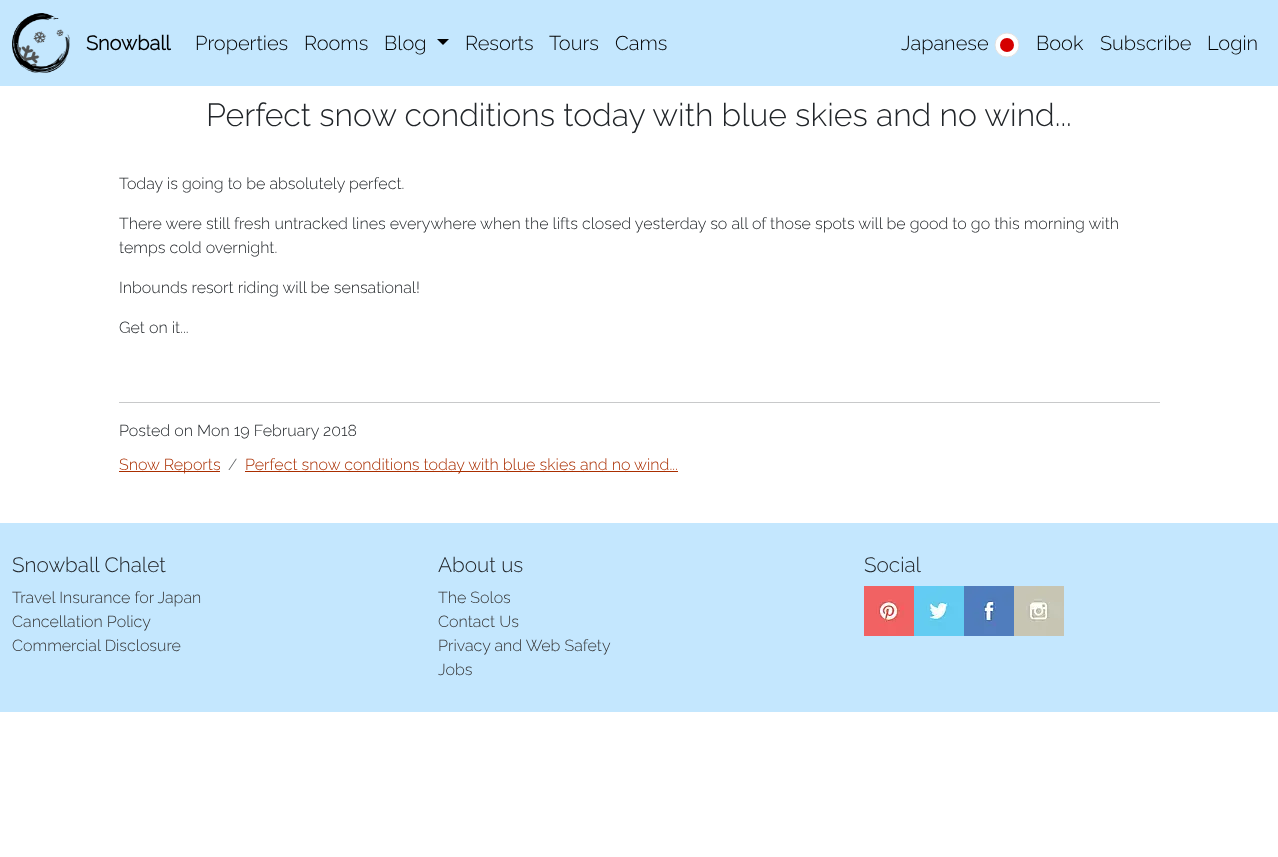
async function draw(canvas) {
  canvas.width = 1278
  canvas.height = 857
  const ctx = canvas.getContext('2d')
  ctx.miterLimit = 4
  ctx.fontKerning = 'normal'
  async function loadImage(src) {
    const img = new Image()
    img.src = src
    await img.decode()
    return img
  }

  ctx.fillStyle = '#fff'
  ctx.fillRect(0, 0, 1278, 857)
  ctx.fillStyle = '#c4e7fe'
  ctx.fillRect(0, 0, 1278, 86)
  ctx.drawImage(await loadImage('image0.png'), 12, 13, 58, 60)
  ctx.font = 'bold 20px Raleway'
  ctx.fillStyle = '#000'
  ctx.fillText('Snowball', 86, 50)
  ctx.font = '300 20px Raleway'
  ctx.fillText('Properties', 195, 50)
  ctx.fillText('Rooms', 304, 50)
  ctx.fillText('Blog', 384, 50)
  ctx.beginPath()
  ctx.moveTo(437, 39)
  ctx.lineTo(449, 39)
  ctx.lineTo(443, 45)
  ctx.closePath()
  ctx.fill()
  ctx.fillText('Resorts', 465, 50)
  ctx.fillText('Tours', 549, 50)
  ctx.fillText('Cams', 615, 50)
  ctx.fillText('Japanese', 901, 50)
  ctx.fillStyle = '#fff'
  ctx.beginPath()
  ctx.arc(1007, 45, 12, 0, 2 * Math.PI)
  ctx.fill()
  ctx.strokeStyle = '#e1e1e1'
  ctx.stroke()
  ctx.fillStyle = '#d50000'
  ctx.beginPath()
  ctx.arc(1007, 45, 7, 0, 2 * Math.PI)
  ctx.fill()
  ctx.fillStyle = '#000'
  ctx.fillText('Book', 1036, 50)
  ctx.fillText('Subscribe', 1100, 50)
  ctx.fillText('Login', 1207, 50)
  ctx.font = '300 32px Raleway'
  ctx.fillStyle = '#212529'
  ctx.fillText('Perfect snow conditions today with blue skies and no wind...', 206, 126)
  ctx.font = '300 16px Raleway'
  ctx.fillText('Today is going to be absolutely perfect.', 119, 189)
  ctx.fillText('There were still fresh untracked lines everywhere when the lifts closed yesterday so all of those spots will be good to go this morning with', 119, 229)
  ctx.fillText('temps cold overnight.', 119, 253)
  ctx.fillText('Inbounds resort riding will be sensational!', 119, 293)
  ctx.fillText('Get on it...', 119, 333)
  ctx.fillStyle = '#c8c9ca'
  ctx.fillRect(119, 402, 1041, 1)
  ctx.fillStyle = '#212529'
  ctx.fillText('Posted on Mon 19 February 2018', 119, 436)
  ctx.fillStyle = '#aa2e00'
  ctx.fillRect(119, 471, 101, 1)
  ctx.fillText('Snow Reports', 119, 470)
  ctx.fillStyle = '#595c5f'
  ctx.fillText('/', 228, 470)
  ctx.fillStyle = '#aa2e00'
  ctx.fillRect(245, 471, 433, 1)
  ctx.fillText('Perfect snow conditions today with blue skies and no wind...', 245, 470)
  ctx.fillStyle = '#c4e7fe'
  ctx.fillRect(0, 523, 1278, 189)
  ctx.font = '300 20.75px Raleway'
  ctx.fillStyle = '#212529'
  ctx.fillText('Snowball Chalet', 12, 572)
  ctx.font = '300 16px Raleway'
  ctx.fillStyle = '#343434'
  ctx.fillText('Travel Insurance for Japan', 12, 603)
  ctx.fillText('Cancellation Policy', 12, 627)
  ctx.fillText('Commercial Disclosure', 12, 651)
  ctx.font = '300 20.75px Raleway'
  ctx.fillStyle = '#212529'
  ctx.fillText('About us', 438, 572)
  ctx.font = '300 16px Raleway'
  ctx.fillStyle = '#343434'
  ctx.fillText('The Solos', 438, 603)
  ctx.fillText('Contact Us', 438, 627)
  ctx.fillText('Privacy and Web Safety', 438, 651)
  ctx.fillText('Jobs', 438, 675)
  ctx.font = '300 20.75px Raleway'
  ctx.fillStyle = '#212529'
  ctx.fillText('Social', 864, 572)
  ctx.drawImage(await loadImage('image1.png'), 864, 586, 50, 50)
  ctx.drawImage(await loadImage('image2.png'), 914, 586, 50, 50)
  ctx.drawImage(await loadImage('image3.png'), 964, 586, 50, 50)
  ctx.drawImage(await loadImage('image4.png'), 1014, 586, 50, 50)
}

draw(document.querySelector('canvas'))
